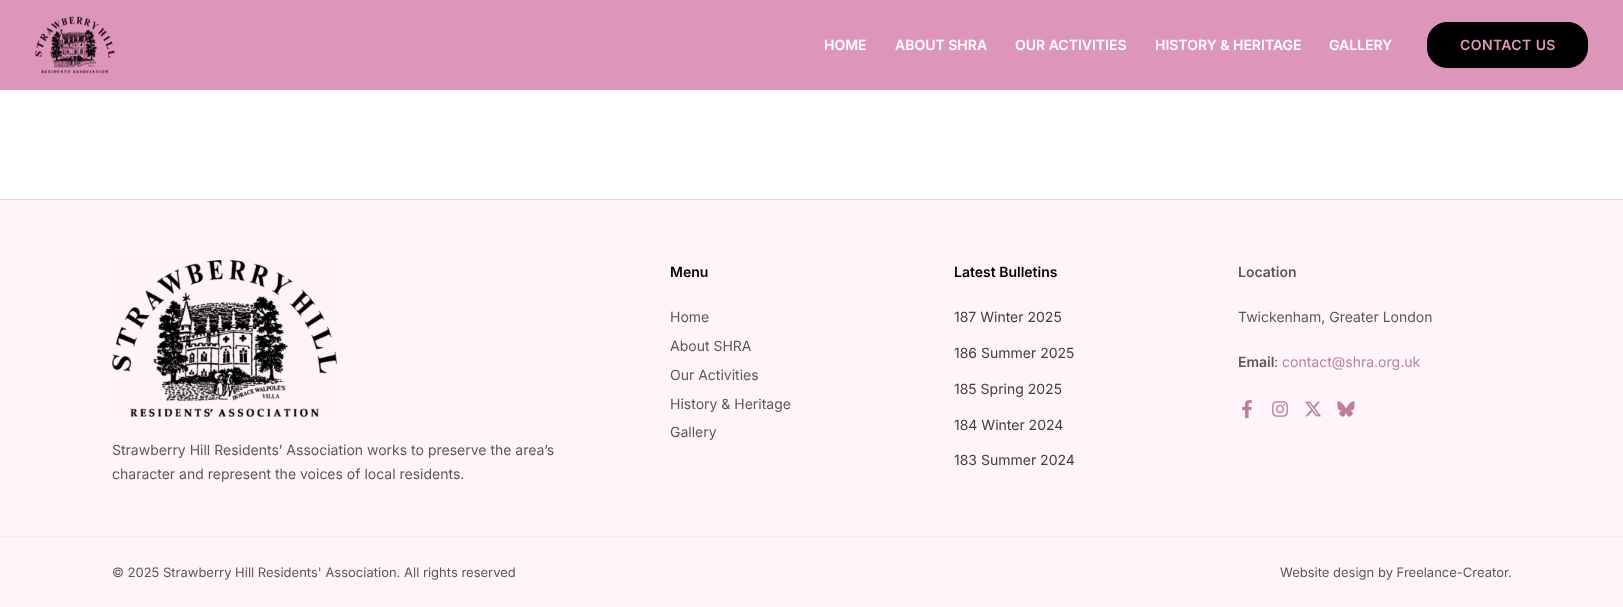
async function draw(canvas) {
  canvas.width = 1623
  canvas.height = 607
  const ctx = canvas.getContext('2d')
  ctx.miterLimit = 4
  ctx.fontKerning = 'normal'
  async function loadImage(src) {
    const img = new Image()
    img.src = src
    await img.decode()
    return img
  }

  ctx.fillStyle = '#fff'
  ctx.fillRect(0, 0, 1623, 607)
  ctx.fillStyle = '#dd96ba'
  ctx.fillRect(0, 0, 1623, 90)
  ctx.drawImage(await loadImage('image0.png'), 35, 16, 80, 58)
  ctx.font = '600 14px Inter'
  ctx.fillStyle = '#fff'
  ctx.fillText('HOME', 824, 50)
  ctx.fillText('ABOUT SHRA', 895, 50)
  ctx.fillText('OUR ACTIVITIES', 1015, 50)
  ctx.fillText('HISTORY & HERITAGE', 1155, 50)
  ctx.fillText('GALLERY', 1329, 50)
  ctx.fillStyle = '#000'
  ctx.beginPath()
  ctx.roundRect(1427.5, 22.5, 160, 45, 19.5)
  ctx.fill()
  ctx.strokeStyle = '#000'
  ctx.stroke()
  ctx.letterSpacing = '0.4px'
  ctx.fillStyle = '#dd96ba'
  ctx.fillText('CONTACT US', 1460, 50)
  ctx.fillStyle = '#fff4fa'
  ctx.fillRect(0, 200, 1623, 336)
  ctx.fillStyle = '#f1ccde'
  ctx.fillRect(0, 199, 1623, 1)
  ctx.letterSpacing = '0px'
  ctx.fillStyle = '#000'
  ctx.fillText('Menu', 670, 277)
  ctx.font = '14px Inter'
  ctx.fillStyle = '#595959'
  ctx.fillText('Home', 670, 322)
  ctx.fillText('About SHRA', 670, 351)
  ctx.fillText('Our Activities', 670, 380)
  ctx.fillText('History & Heritage', 670, 409)
  ctx.fillText('Gallery', 670, 437)
  ctx.font = '600 14px Inter'
  ctx.fillStyle = '#000'
  ctx.fillText('Latest Bulletins', 954, 277)
  ctx.font = '14px Inter'
  ctx.fillStyle = '#404040'
  ctx.fillText('187 Winter 2025', 954, 322)
  ctx.fillText('186 Summer 2025', 954, 358)
  ctx.fillText('185 Spring 2025', 954, 394)
  ctx.fillText('184 Winter 2024', 954, 430)
  ctx.fillText('183 Summer 2024', 954, 465)
  ctx.font = '600 14px Inter'
  ctx.fillStyle = '#595959'
  ctx.fillText('Location', 1238, 277)
  ctx.font = '14px Inter'
  ctx.fillText('Twickenham, Greater London', 1238, 322)
  ctx.font = '600 14px Inter'
  ctx.fillText('Email', 1238, 367)
  ctx.font = '14px Inter'
  ctx.fillText(':', 1274, 367)
  ctx.fillStyle = '#bc7f9e'
  ctx.fillText('contact@shra.org.uk', 1282, 367)
  ctx.drawImage(await loadImage('image1.png'), 1242, 400, 10, 18)
  ctx.drawImage(await loadImage('image2.png'), 1272, 401, 16, 16)
  ctx.drawImage(await loadImage('image3.png'), 1305, 401, 16, 16)
  ctx.drawImage(await loadImage('image4.png'), 1337, 401, 18, 16)
  ctx.drawImage(await loadImage('image5.png'), 112, 260, 225, 157)
  ctx.fillStyle = '#595959'
  ctx.fillText('Strawberry Hill Residents’ Association works to preserve the area’s', 112, 455)
  ctx.fillText('character and represent the voices of local residents.', 112, 479)
  ctx.fillStyle = '#fff4fa'
  ctx.fillRect(0, 537, 1623, 70)
  ctx.fillStyle = '#fae7f1'
  ctx.fillRect(0, 536, 1623, 1)
  ctx.font = '13px Inter'
  ctx.fillStyle = '#595959'
  ctx.fillText('© 2025 Strawberry Hill Residents\' Association. All rights reserved', 112, 577)
  ctx.fillText('Website design by Freelance-Creator', 1280, 577)
  ctx.fillText('.', 1508, 577)
}

draw(document.querySelector('canvas'))
